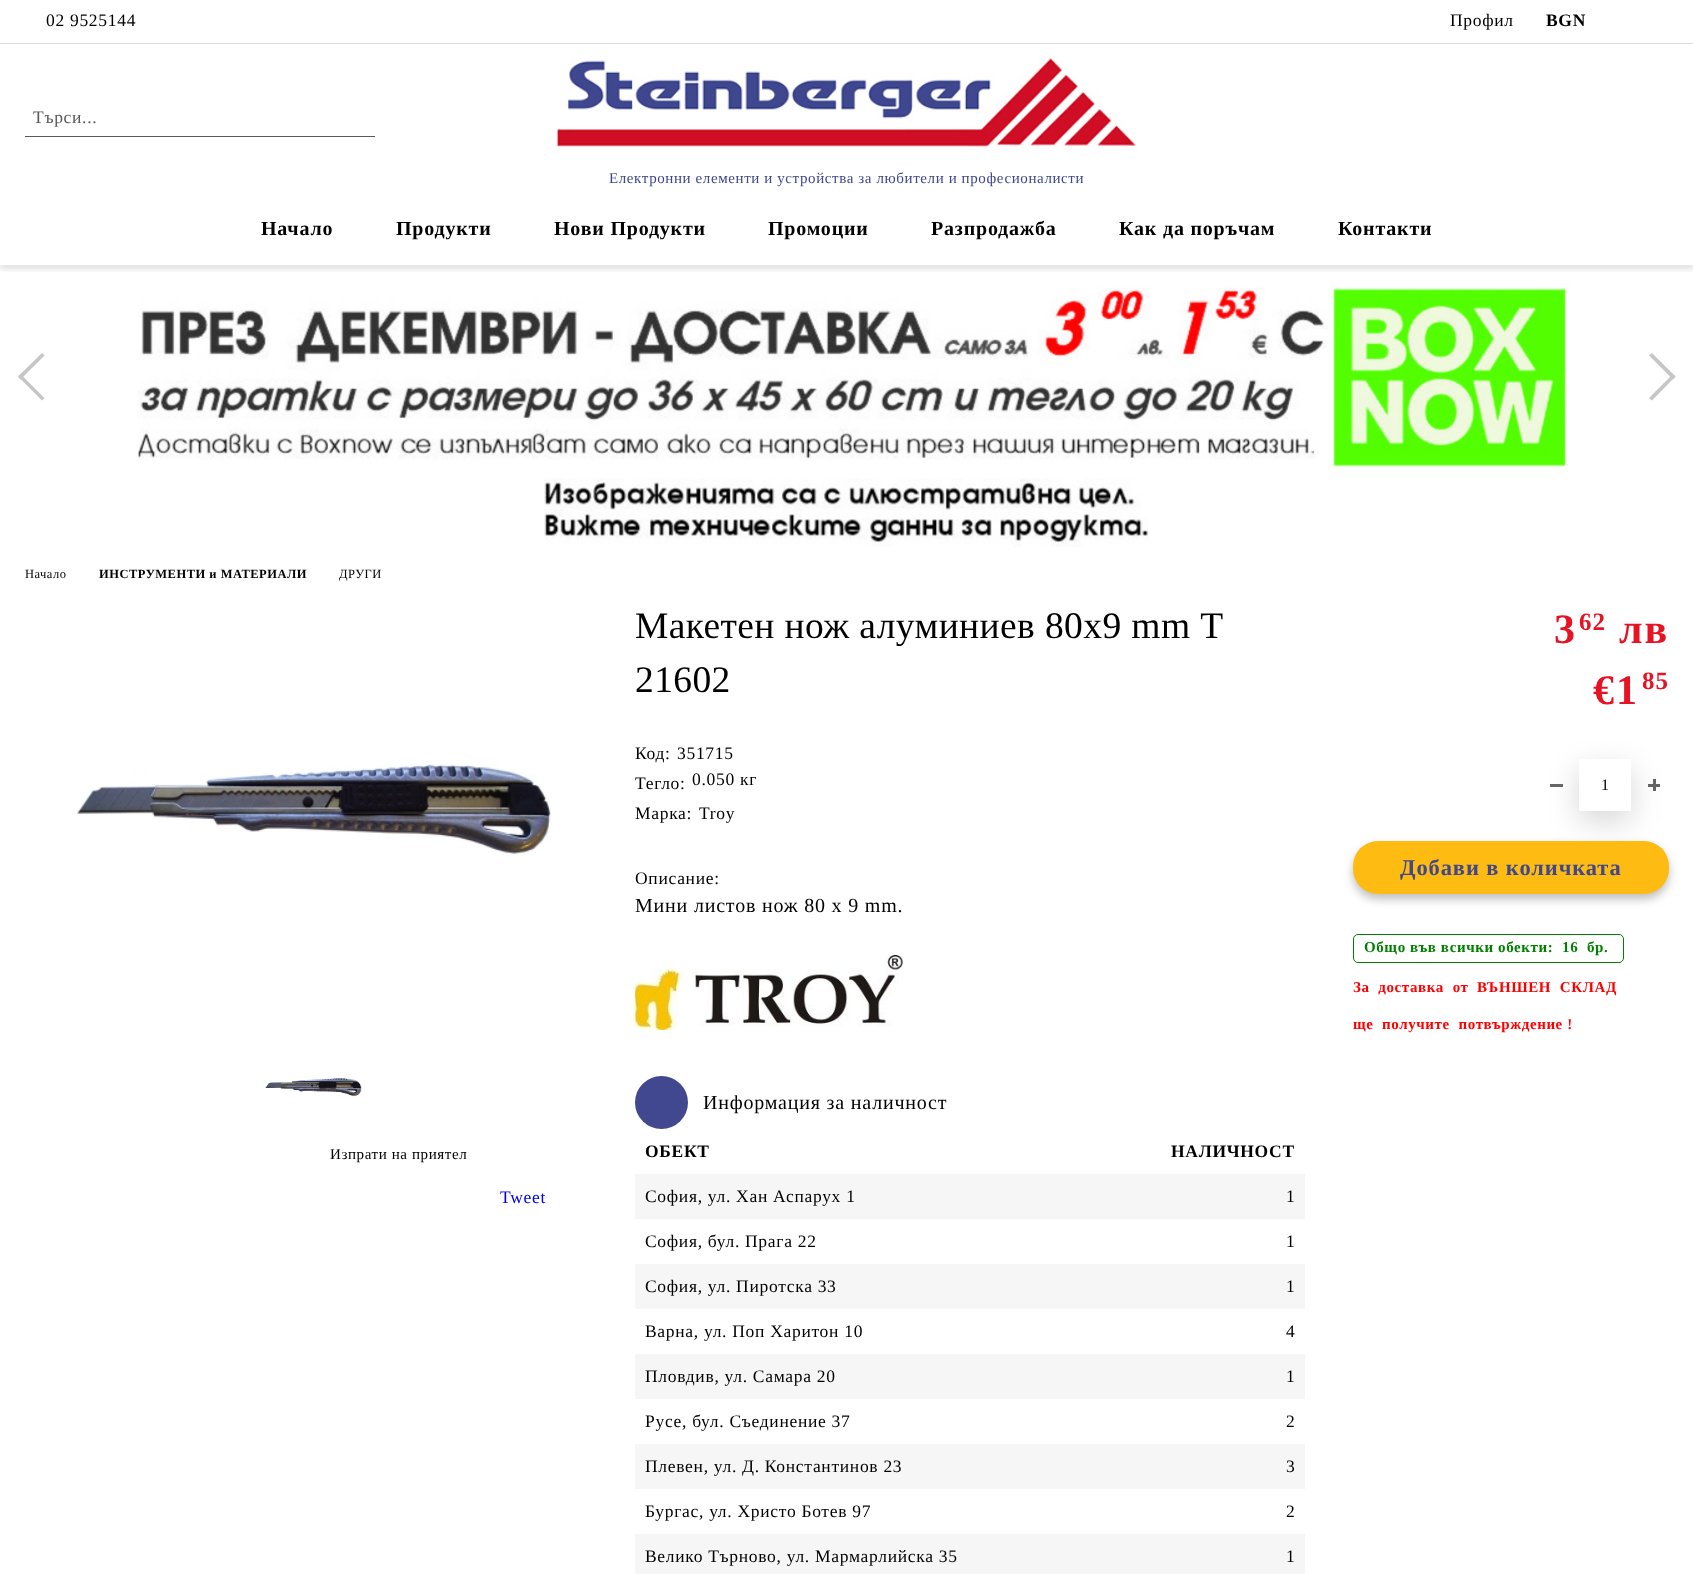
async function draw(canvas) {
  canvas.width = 1693
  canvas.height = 1574
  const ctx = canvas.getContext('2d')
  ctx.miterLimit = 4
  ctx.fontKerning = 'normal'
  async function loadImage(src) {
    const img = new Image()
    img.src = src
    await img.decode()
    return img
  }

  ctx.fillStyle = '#fff'
  ctx.fillRect(0, 0, 1693, 1574)
  ctx.fillStyle = '#ddd'
  ctx.fillRect(0, 43, 1693, 1)
  ctx.letterSpacing = '0.7px'
  ctx.font = '17.5px Liberation Serif'
  ctx.fillStyle = '#000'
  ctx.fillText('02 9525144', 46, 26)
  ctx.fillText('Профил', 1450, 26)
  ctx.font = 'bold 17.5px Liberation Serif'
  ctx.fillText('BGN', 1546, 26)
  ctx.fillStyle = '#595959'
  ctx.fillRect(25, 136, 350, 1)
  ctx.save()
  ctx.beginPath()
  ctx.rect(33, 109, 335, 20)
  ctx.clip()
  ctx.font = '17.5px Liberation Serif'
  ctx.fillText('Търси...', 33, 123)
  ctx.restore()
  ctx.drawImage(await loadImage('image0.png'), 556, 58, 580, 89)
  ctx.letterSpacing = '0.6px'
  ctx.font = '15px Liberation Serif'
  ctx.fillStyle = '#3f478f'
  ctx.fillText('Електронни елементи и устройства за любители и професионалисти', 609, 183)
  ctx.save()
  ctx.beginPath()
  ctx.rect(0, 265, 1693, 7)
  ctx.clip()
  ctx.fillStyle = '#0000001a'
  ctx.filter = 'blur(2.5px)'
  ctx.beginPath()
  ctx.rect(0, 199, 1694, 71)
  ctx.fill()
  ctx.filter = 'none'
  ctx.restore()
  ctx.letterSpacing = '0.8px'
  ctx.font = 'bold 20px Liberation Serif'
  ctx.fillStyle = '#000'
  ctx.fillText('Начало', 261, 235)
  ctx.fillText('Продукти', 396, 235)
  ctx.fillText('Нови Продукти', 554, 235)
  ctx.fillText('Промоции', 768, 235)
  ctx.fillText('Разпродажба', 931, 235)
  ctx.fillText('Как да поръчам', 1119, 235)
  ctx.fillText('Контакти', 1338, 235)
  ctx.drawImage(await loadImage('image1.png'), 137, 283, 1432, 187)
  ctx.fillStyle = '#c6c6c6'
  ctx.beginPath()
  ctx.moveTo(44.5, 398)
  ctx.lineTo(42, 400.5)
  ctx.lineTo(18, 376.5)
  ctx.lineTo(20.5, 374)
  ctx.closePath()
  ctx.fill()
  ctx.beginPath()
  ctx.moveTo(44.5, 355.5)
  ctx.lineTo(20.5, 379.5)
  ctx.lineTo(18, 376.5)
  ctx.lineTo(42, 353)
  ctx.closePath()
  ctx.fill()
  ctx.beginPath()
  ctx.moveTo(1649, 355.5)
  ctx.lineTo(1652, 353)
  ctx.lineTo(1675.5, 376.5)
  ctx.lineTo(1673, 379.5)
  ctx.closePath()
  ctx.fill()
  ctx.beginPath()
  ctx.moveTo(1649, 398)
  ctx.lineTo(1673, 374)
  ctx.lineTo(1675.5, 376.5)
  ctx.lineTo(1652, 400.5)
  ctx.closePath()
  ctx.fill()
  ctx.drawImage(await loadImage('image2.png'), 544, 478, 606, 69)
  ctx.letterSpacing = '0.5px'
  ctx.font = '12.5px Liberation Serif'
  ctx.fillStyle = '#000'
  ctx.fillText('Начало', 25, 578)
  ctx.font = 'bold 12.5px Liberation Serif'
  ctx.fillText('ИНСТРУМЕНТИ и МАТЕРИАЛИ', 99, 578)
  ctx.font = '12.5px Liberation Serif'
  ctx.fillText('ДРУГИ', 339, 578)
  ctx.letterSpacing = '0.4px'
  ctx.font = '37.5px Liberation Serif'
  ctx.fillText('Макетен нож алуминиев 80х9 mm Т', 635, 638)
  ctx.fillText('21602', 635, 692)
  ctx.letterSpacing = '0.7px'
  ctx.font = '17.5px Liberation Serif'
  ctx.fillText('Код:', 635, 759)
  ctx.fillText('351715', 677, 759)
  ctx.fillText('Тегло:', 635, 789)
  ctx.fillText('0.050 кг', 692, 785)
  ctx.fillText('Марка:', 635, 819)
  ctx.fillText('Troy', 699, 819)
  ctx.fillText('Описание:', 635, 884)
  ctx.letterSpacing = '0.8px'
  ctx.font = '20px Liberation Serif'
  ctx.fillText('Мини листов нож 80 х 9 mm.', 635, 912)
  ctx.drawImage(await loadImage('image3.png'), 635, 955, 268, 75)
  ctx.fillStyle = '#41488f'
  ctx.beginPath()
  ctx.arc(661.5, 1102.5, 26.5, 0, 2 * Math.PI)
  ctx.fill()
  ctx.fillStyle = '#000'
  ctx.fillText('Информация за наличност', 703, 1109)
  ctx.letterSpacing = '0.7px'
  ctx.font = 'bold 17.5px Liberation Serif'
  ctx.fillText('ОБЕКТ', 645, 1157)
  ctx.fillText('НАЛИЧНОСТ', 1171, 1157)
  ctx.fillStyle = '#f6f6f6'
  ctx.fillRect(635, 1174, 670, 45)
  ctx.font = '17.5px Liberation Serif'
  ctx.fillStyle = '#000'
  ctx.fillText('София, ул. Хан Аспарух 1', 645, 1202)
  ctx.fillText('1', 1286, 1202)
  ctx.fillText('София, бул. Прага 22', 645, 1247)
  ctx.fillText('1', 1286, 1247)
  ctx.fillStyle = '#f6f6f6'
  ctx.fillRect(635, 1264, 670, 45)
  ctx.fillStyle = '#000'
  ctx.fillText('София, ул. Пиротска 33', 645, 1292)
  ctx.fillText('1', 1286, 1292)
  ctx.fillText('Варна, ул. Поп Харитон 10', 645, 1337)
  ctx.fillText('4', 1286, 1337)
  ctx.fillStyle = '#f6f6f6'
  ctx.fillRect(635, 1354, 670, 45)
  ctx.fillStyle = '#000'
  ctx.fillText('Пловдив, ул. Самара 20', 645, 1382)
  ctx.fillText('1', 1286, 1382)
  ctx.fillText('Русе, бул. Съединение 37', 645, 1427)
  ctx.fillText('2', 1286, 1427)
  ctx.fillStyle = '#f6f6f6'
  ctx.fillRect(635, 1444, 670, 45)
  ctx.fillStyle = '#000'
  ctx.fillText('Плевен, ул. Д. Константинов 23', 645, 1472)
  ctx.fillText('3', 1286, 1472)
  ctx.fillText('Бургас, ул. Христо Ботев 97', 645, 1517)
  ctx.fillText('2', 1286, 1517)
  ctx.fillStyle = '#f6f6f6'
  ctx.fillRect(635, 1534, 670, 40)
  ctx.fillStyle = '#000'
  ctx.fillText('Велико Търново, ул. Мармарлийска 35', 645, 1562)
  ctx.fillText('1', 1286, 1562)
  ctx.letterSpacing = '2px'
  ctx.font = 'bold 42px Liberation Serif'
  ctx.fillStyle = '#e81225'
  ctx.fillText('3', 1554, 643)
  ctx.letterSpacing = '1px'
  ctx.font = 'bold 25px Liberation Serif'
  ctx.fillText('62', 1579, 630)
  ctx.letterSpacing = '2px'
  ctx.font = 'bold 42px Liberation Serif'
  ctx.fillText('лв', 1619, 643)
  ctx.fillText('€1', 1593, 704)
  ctx.letterSpacing = '1px'
  ctx.font = 'bold 25px Liberation Serif'
  ctx.fillText('85', 1642, 689)
  ctx.save()
  ctx.beginPath()
  ctx.moveTo(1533, 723)
  ctx.lineTo(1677, 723)
  ctx.lineTo(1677, 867)
  ctx.lineTo(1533, 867)
  ctx.closePath()
  ctx.moveTo(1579, 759)
  ctx.lineTo(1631, 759)
  ctx.lineTo(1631, 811)
  ctx.lineTo(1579, 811)
  ctx.closePath()
  ctx.clip('evenodd')
  ctx.fillStyle = '#00000029'
  ctx.filter = 'blur(15px)'
  ctx.beginPath()
  ctx.rect(1579, 769, 52, 52)
  ctx.fill()
  ctx.filter = 'none'
  ctx.restore()
  ctx.fillStyle = '#666'
  ctx.fillRect(1550, 784, 13, 3)
  ctx.font = '16px Liberation Serif'
  ctx.fillStyle = '#000'
  ctx.fillText('1', 1601, 790)
  ctx.fillStyle = '#666'
  ctx.fillRect(1648, 784, 12, 3)
  ctx.fillRect(1653, 779, 3, 12)
  ctx.fillStyle = '#00000042'
  ctx.filter = 'blur(5px)'
  ctx.beginPath()
  ctx.roundRect(1353, 846, 316, 53, 25)
  ctx.fill()
  ctx.filter = 'none'
  ctx.fillStyle = '#febb12'
  ctx.beginPath()
  ctx.roundRect(1353, 841, 316, 53, 25)
  ctx.fill()
  ctx.letterSpacing = '0.9px'
  ctx.font = 'bold 22.5px Liberation Serif'
  ctx.fillStyle = '#3f478f'
  ctx.fillText('Добави в количката', 1400, 875)
  ctx.beginPath()
  ctx.roundRect(1353.5, 934.5, 270, 28, 4.5)
  ctx.strokeStyle = '#008000'
  ctx.stroke()
  ctx.letterSpacing = '0.6px'
  ctx.font = 'bold 15px Liberation Serif'
  ctx.fillStyle = '#008000'
  ctx.fillText('Общо във всички обекти:  16  бр.', 1364, 952)
  ctx.fillStyle = '#f00'
  ctx.fillText('За  доставка  от', 1353, 992)
  ctx.fillText('ВЪНШЕН  СКЛАД', 1477, 992)
  ctx.fillText('ще', 1353, 1029)
  ctx.fillText('получите  потвърждение !', 1382, 1029)
  ctx.drawImage(await loadImage('image4.png'), 77, 764, 474, 90)
  ctx.drawImage(await loadImage('image5.png'), 265, 1078, 97, 19)
  ctx.font = '15px Liberation Serif'
  ctx.fillStyle = '#000'
  ctx.fillText('Изпрати на приятел', 330, 1159)
  ctx.letterSpacing = '0.7px'
  ctx.font = '17.5px Liberation Serif'
  ctx.fillStyle = '#00e'
  ctx.fillText('Tweet', 500, 1203)
}

draw(document.querySelector('canvas'))
